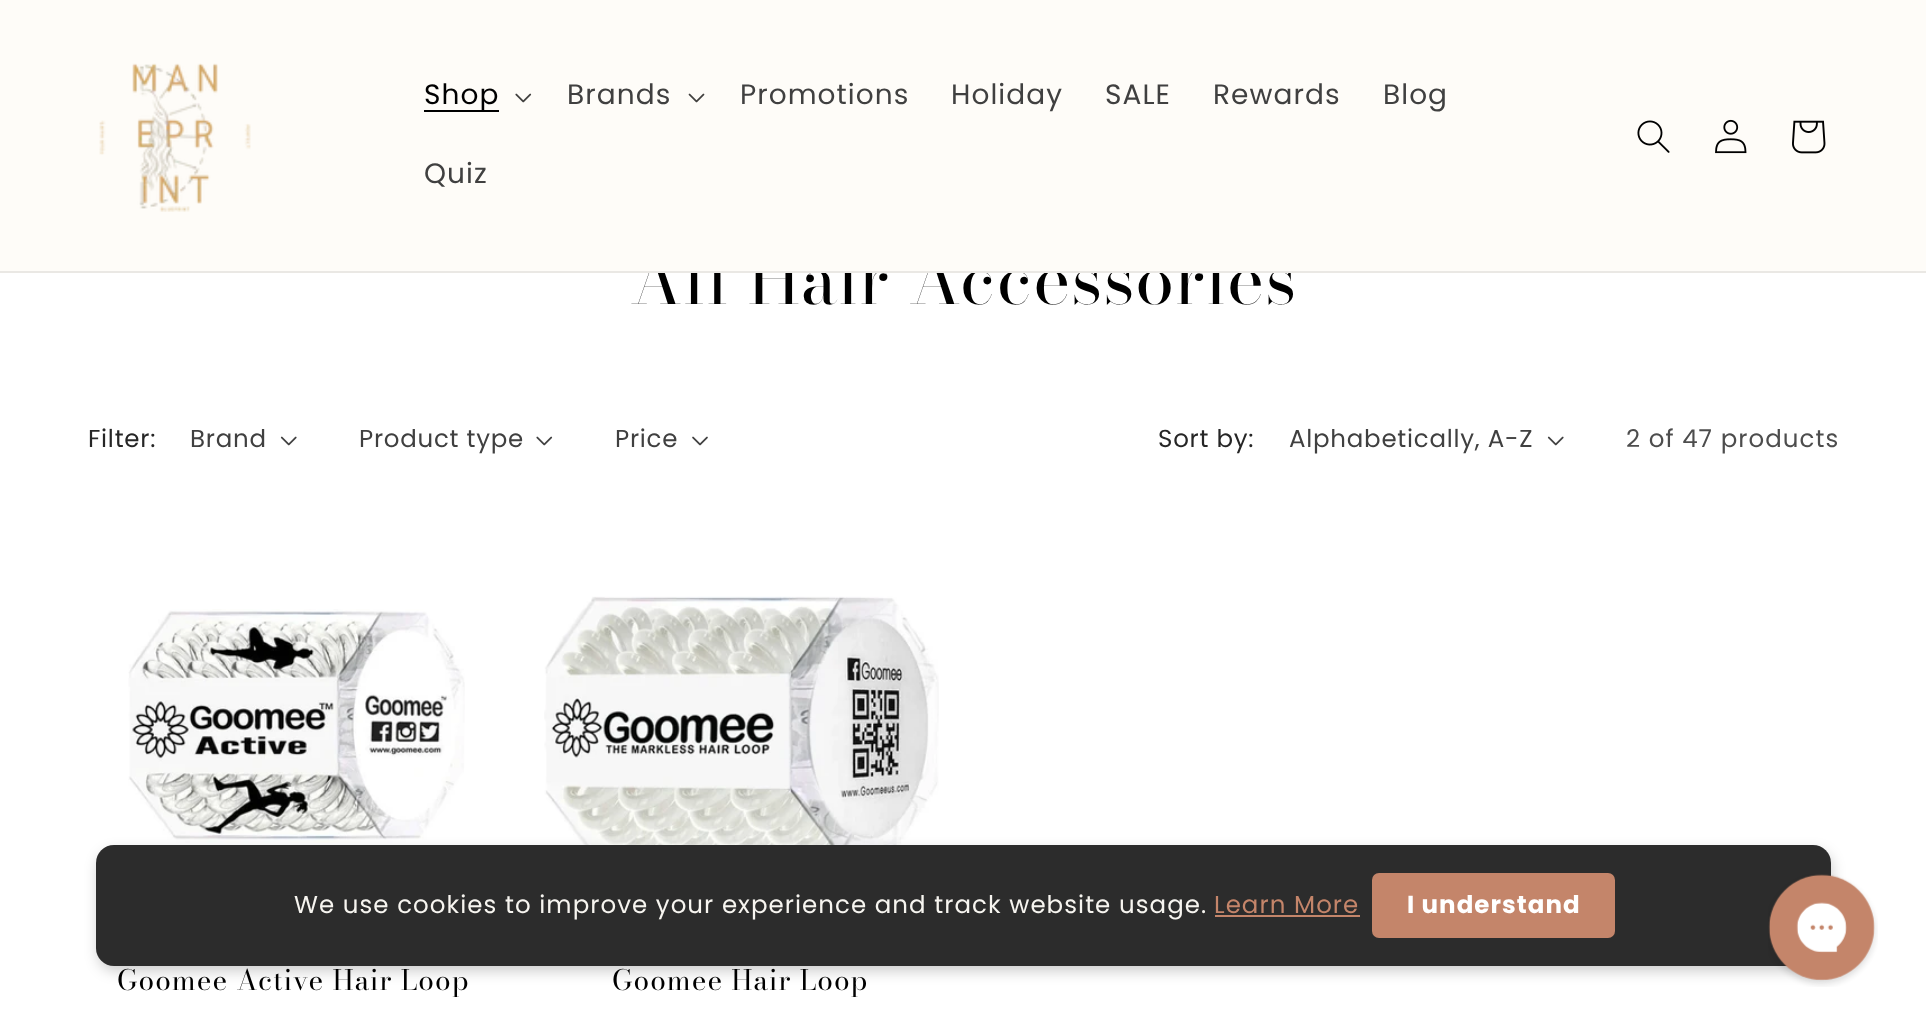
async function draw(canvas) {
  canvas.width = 1926
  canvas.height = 1026
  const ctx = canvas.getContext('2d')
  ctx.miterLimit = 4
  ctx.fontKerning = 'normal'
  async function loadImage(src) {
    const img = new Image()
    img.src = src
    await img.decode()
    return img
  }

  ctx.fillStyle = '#fff'
  ctx.fillRect(0, 0, 1926, 1026)
  ctx.letterSpacing = '1.05px'
  ctx.font = '70px Bodoni Moda'
  ctx.fillStyle = '#000'
  ctx.fillText('All Hair Accessories', 630, 304)
  ctx.fillStyle = '#fefcf8'
  ctx.fillRect(0, 0, 1926, 271)
  ctx.fillStyle = '#eae8e4'
  ctx.fillRect(0, 271, 1926, 2)
  ctx.drawImage(await loadImage('image0.png'), 99, 63, 152, 149)
  ctx.fillStyle = '#000'
  ctx.fillRect(424, 110, 75, 2)
  ctx.font = '28px Poppins'
  ctx.fillText('Shop', 424, 104)
  ctx.drawImage(await loadImage('image1.png'), 515, 93, 17, 10)
  ctx.fillStyle = '#404040'
  ctx.fillText('Brands', 567, 104)
  ctx.drawImage(await loadImage('image2.png'), 688, 93, 17, 10)
  ctx.fillText('Promotions', 740, 104)
  ctx.fillText('Holiday', 951, 104)
  ctx.fillText('SALE', 1105, 104)
  ctx.fillText('Rewards', 1213, 104)
  ctx.fillText('Blog', 1383, 104)
  ctx.fillText('Quiz', 424, 183)
  ctx.drawImage(await loadImage('image3.png'), 1637, 120, 33, 33)
  ctx.drawImage(await loadImage('image4.png'), 1715, 119, 32, 35)
  ctx.drawImage(await loadImage('image5.png'), 1792, 120, 34, 34)
  ctx.letterSpacing = '0.75px'
  ctx.font = '24.5px Poppins'
  ctx.fillStyle = '#262626'
  ctx.fillText('Filter:', 88, 447)
  ctx.fillStyle = '#404040'
  ctx.fillText('Brand', 190, 447)
  ctx.drawImage(await loadImage('image6.png'), 280, 436, 17, 10)
  ctx.fillText('Product type', 359, 447)
  ctx.drawImage(await loadImage('image7.png'), 536, 436, 17, 10)
  ctx.fillText('Price', 615, 447)
  ctx.drawImage(await loadImage('image8.png'), 692, 436, 16, 10)
  ctx.fillStyle = '#262626'
  ctx.fillText('Sort by:', 1158, 447)
  ctx.fillStyle = '#404040'
  ctx.fillText('Alphabetically, A-Z', 1289, 447)
  ctx.drawImage(await loadImage('image6.png'), 1547, 436, 17, 10)
  ctx.letterSpacing = '1.05px'
  ctx.fillStyle = '#4d4d4d'
  ctx.fillText('2 of 47 products', 1626, 447)
  ctx.drawImage(await loadImage('image9.png'), 128, 609, 337, 234)
  ctx.font = '28px "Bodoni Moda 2"'
  ctx.fillStyle = '#000'
  ctx.fillText('Goomee Active Hair Loop', 117, 990)
  ctx.drawImage(await loadImage('image10.png'), 544, 596, 395, 249)
  ctx.fillText('Goomee Hair Loop', 612, 990)
  ctx.fillStyle = '#00000033'
  ctx.filter = 'blur(7px)'
  ctx.beginPath()
  ctx.roundRect(98, 851, 1734, 120, 18)
  ctx.fill()
  ctx.filter = 'none'
  ctx.fillStyle = '#2c2c2c'
  ctx.beginPath()
  ctx.roundRect(96, 845, 1735, 121, 18)
  ctx.fill()
  ctx.font = '24.5px Poppins'
  ctx.fillStyle = '#f7f5f0'
  ctx.fillText('We use cookies to improve your experience and track website usage.', 294, 913)
  ctx.fillStyle = '#c4856a'
  ctx.fillText('Learn More', 1214, 913)
  ctx.fillRect(1215, 915, 145, 2)
  ctx.beginPath()
  ctx.roundRect(1372, 873, 243, 65, 7)
  ctx.fill()
  ctx.font = 'bold 24.5px Poppins'
  ctx.fillStyle = '#fff'
  ctx.fillText('I understand', 1407, 913)
  ctx.drawImage(await loadImage('image11.png'), 1768, 874, 110, 113)
}

draw(document.querySelector('canvas'))
